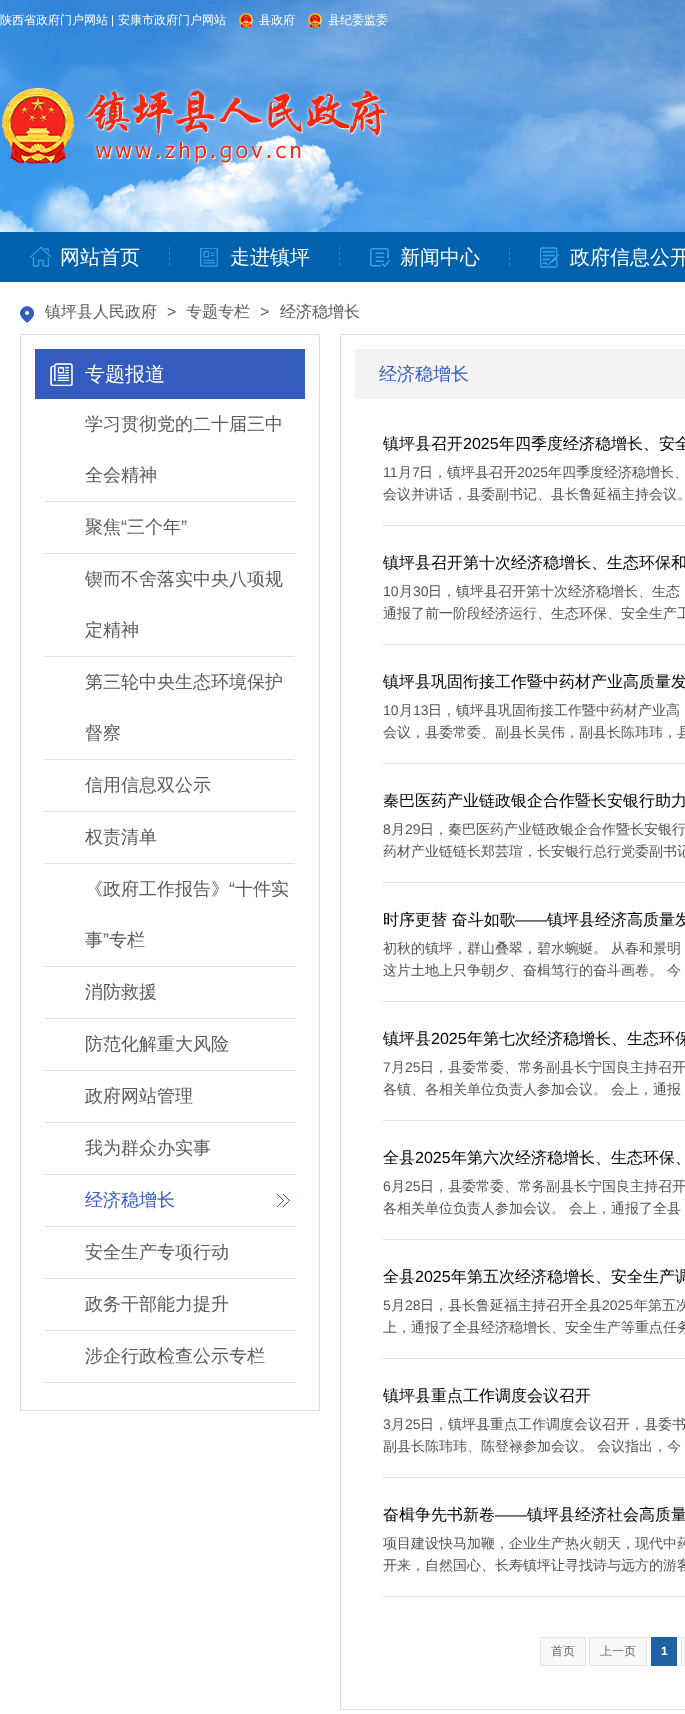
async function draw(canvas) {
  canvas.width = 685
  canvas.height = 1714
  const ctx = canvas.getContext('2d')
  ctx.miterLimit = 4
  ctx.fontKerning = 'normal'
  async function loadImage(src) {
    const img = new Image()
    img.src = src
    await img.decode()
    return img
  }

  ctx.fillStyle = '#fff'
  ctx.fillRect(0, 0, 685, 1714)
  ctx.drawImage(await loadImage('image0.png'), 0, 0, 685, 232)
  ctx.font = '500 12px WenQuanYi Zen Hei'
  ctx.fillText('陕西省政府门户网站', 0, 24)
  ctx.font = '12px Liberation Sans'
  ctx.fillText('|', 111, 24)
  ctx.font = '500 12px WenQuanYi Zen Hei'
  ctx.fillText('安康市政府门户网站', 118, 24)
  ctx.drawImage(await loadImage('image1.png'), 239, 13, 14, 15)
  ctx.fillText('县政府', 259, 24)
  ctx.drawImage(await loadImage('image2.png'), 308, 13, 14, 15)
  ctx.fillText('县纪委监委', 328, 24)
  ctx.drawImage(await loadImage('image3.png'), 2, 87, 386, 78)
  ctx.fillStyle = '#0062ad'
  ctx.fillRect(0, 232, 685, 50)
  ctx.drawImage(await loadImage('image4.png'), 30, 247, 21, 20)
  ctx.font = '500 20px WenQuanYi Zen Hei'
  ctx.fillStyle = '#fff'
  ctx.fillText('网站首页', 60, 264)
  ctx.beginPath()
  ctx.moveTo(169.5, 247)
  ctx.lineTo(169.5, 266)
  ctx.strokeStyle = '#208de1'
  ctx.setLineDash([3, 2.33])
  ctx.stroke()
  ctx.drawImage(await loadImage('image5.png'), 200, 248, 18, 19)
  ctx.fillText('走进镇坪', 230, 264)
  ctx.beginPath()
  ctx.moveTo(339.5, 247)
  ctx.lineTo(339.5, 266)
  ctx.stroke()
  ctx.drawImage(await loadImage('image6.png'), 370, 248, 20, 19)
  ctx.fillText('新闻中心', 400, 264)
  ctx.beginPath()
  ctx.moveTo(509.5, 247)
  ctx.lineTo(509.5, 266)
  ctx.stroke()
  ctx.drawImage(await loadImage('image7.png'), 540, 247, 19, 21)
  ctx.fillText('政府信息公开', 570, 264)
  ctx.drawImage(await loadImage('image8.png'), 20, 306, 14, 17)
  ctx.font = '500 16px WenQuanYi Zen Hei'
  ctx.fillStyle = '#5b5b5b'
  ctx.fillText('镇坪县人民政府', 45, 317)
  ctx.font = '16px Liberation Sans'
  ctx.fillText('>', 167, 317)
  ctx.font = '500 16px WenQuanYi Zen Hei'
  ctx.fillText('专题专栏', 186, 317)
  ctx.font = '16px Liberation Sans'
  ctx.fillText('>', 260, 317)
  ctx.font = '500 16px WenQuanYi Zen Hei'
  ctx.fillText('经济稳增长', 280, 317)
  ctx.strokeStyle = '#dedede'
  ctx.setLineDash([])
  ctx.strokeRect(20.5, 334.5, 299, 1076)
  ctx.fillStyle = '#335bc0'
  ctx.fillRect(35, 349, 270, 50)
  ctx.drawImage(await loadImage('image9.png'), 50, 363, 23, 23)
  ctx.font = '500 20px WenQuanYi Zen Hei'
  ctx.fillStyle = '#fff'
  ctx.fillText('专题报道', 85, 381)
  ctx.fillStyle = '#dfdfdf'
  ctx.fillRect(45, 501, 250, 1)
  ctx.font = '500 18px WenQuanYi Zen Hei'
  ctx.fillStyle = '#5b5b5b'
  ctx.fillText('学习贯彻党的二十届三中', 85, 430)
  ctx.fillText('全会精神', 85, 481)
  ctx.fillStyle = '#dfdfdf'
  ctx.fillRect(45, 553, 250, 1)
  ctx.fillStyle = '#5b5b5b'
  ctx.fillText('聚焦', 85, 533)
  ctx.font = '18px Liberation Sans'
  ctx.fillText('“', 121, 533)
  ctx.font = '500 18px WenQuanYi Zen Hei'
  ctx.fillText('三个年', 127, 533)
  ctx.font = '18px Liberation Sans'
  ctx.fillText('”', 181, 533)
  ctx.fillStyle = '#dfdfdf'
  ctx.fillRect(45, 656, 250, 1)
  ctx.font = '500 18px WenQuanYi Zen Hei'
  ctx.fillStyle = '#5b5b5b'
  ctx.fillText('锲而不舍落实中央八项规', 85, 585)
  ctx.fillText('定精神', 85, 636)
  ctx.fillStyle = '#dfdfdf'
  ctx.fillRect(45, 759, 250, 1)
  ctx.fillStyle = '#5b5b5b'
  ctx.fillText('第三轮中央生态环境保护', 85, 688)
  ctx.fillText('督察', 85, 739)
  ctx.fillStyle = '#dfdfdf'
  ctx.fillRect(45, 811, 250, 1)
  ctx.fillStyle = '#5b5b5b'
  ctx.fillText('信用信息双公示', 85, 791)
  ctx.fillStyle = '#dfdfdf'
  ctx.fillRect(45, 863, 250, 1)
  ctx.fillStyle = '#5b5b5b'
  ctx.fillText('权责清单', 85, 843)
  ctx.fillStyle = '#dfdfdf'
  ctx.fillRect(45, 966, 250, 1)
  ctx.fillStyle = '#5b5b5b'
  ctx.fillText('《政府工作报告》', 85, 895)
  ctx.font = '18px Liberation Sans'
  ctx.fillText('“', 229, 895)
  ctx.font = '500 18px WenQuanYi Zen Hei'
  ctx.fillText('十件实', 235, 895)
  ctx.fillText('事', 85, 946)
  ctx.font = '18px Liberation Sans'
  ctx.fillText('”', 103, 946)
  ctx.font = '500 18px WenQuanYi Zen Hei'
  ctx.fillText('专栏', 109, 946)
  ctx.fillStyle = '#dfdfdf'
  ctx.fillRect(45, 1018, 250, 1)
  ctx.fillStyle = '#5b5b5b'
  ctx.fillText('消防救援', 85, 998)
  ctx.fillStyle = '#dfdfdf'
  ctx.fillRect(45, 1070, 250, 1)
  ctx.fillStyle = '#5b5b5b'
  ctx.fillText('防范化解重大风险', 85, 1050)
  ctx.fillStyle = '#dfdfdf'
  ctx.fillRect(45, 1122, 250, 1)
  ctx.fillStyle = '#5b5b5b'
  ctx.fillText('政府网站管理', 85, 1102)
  ctx.fillStyle = '#dfdfdf'
  ctx.fillRect(45, 1174, 250, 1)
  ctx.fillStyle = '#5b5b5b'
  ctx.fillText('我为群众办实事', 85, 1154)
  ctx.fillStyle = '#dfdfdf'
  ctx.fillRect(45, 1226, 250, 1)
  ctx.drawImage(await loadImage('image10.png'), 277, 1194, 13, 13)
  ctx.fillStyle = '#335bc0'
  ctx.fillText('经济稳增长', 85, 1206)
  ctx.fillStyle = '#dfdfdf'
  ctx.fillRect(45, 1278, 250, 1)
  ctx.fillStyle = '#5b5b5b'
  ctx.fillText('安全生产专项行动', 85, 1258)
  ctx.fillStyle = '#dfdfdf'
  ctx.fillRect(45, 1330, 250, 1)
  ctx.fillStyle = '#5b5b5b'
  ctx.fillText('政务干部能力提升', 85, 1310)
  ctx.fillStyle = '#dfdfdf'
  ctx.fillRect(45, 1382, 250, 1)
  ctx.fillStyle = '#5b5b5b'
  ctx.fillText('涉企行政检查公示专栏', 85, 1362)
  ctx.strokeRect(340.5, 334.5, 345, 1375)
  ctx.fillStyle = '#f3f3f3'
  ctx.fillRect(355, 349, 330, 50)
  ctx.fillStyle = '#335bc0'
  ctx.fillText('经济稳增长', 379, 380)
  ctx.fillStyle = '#dfdfdf'
  ctx.fillRect(383, 525, 302, 1)
  ctx.font = '500 16px WenQuanYi Zen Hei'
  ctx.fillStyle = '#000'
  ctx.fillText('镇坪县召开', 383, 449)
  ctx.font = '16px Liberation Sans'
  ctx.fillText('2025', 463, 449)
  ctx.font = '500 16px WenQuanYi Zen Hei'
  ctx.fillText('年四季度经济稳增长、安全', 499, 449)
  ctx.font = '14px Liberation Sans'
  ctx.fillStyle = '#545454'
  ctx.fillText('11', 383, 477)
  ctx.font = '500 14px WenQuanYi Zen Hei'
  ctx.fillText('月', 398, 477)
  ctx.font = '14px Liberation Sans'
  ctx.fillText('7', 412, 477)
  ctx.font = '500 14px WenQuanYi Zen Hei'
  ctx.fillText('日，镇坪县召开', 419, 477)
  ctx.font = '14px Liberation Sans'
  ctx.fillText('2025', 517, 477)
  ctx.font = '500 14px WenQuanYi Zen Hei'
  ctx.fillText('年四季度经济稳增长、', 548, 477)
  ctx.fillText('会议并讲话，县委副书记、县长鲁延福主持会议。', 383, 499)
  ctx.fillStyle = '#dfdfdf'
  ctx.fillRect(383, 644, 302, 1)
  ctx.font = '500 16px WenQuanYi Zen Hei'
  ctx.fillStyle = '#000'
  ctx.fillText('镇坪县召开第十次经济稳增长、生态环保和', 383, 568)
  ctx.font = '14px Liberation Sans'
  ctx.fillStyle = '#545454'
  ctx.fillText('10', 383, 596)
  ctx.font = '500 14px WenQuanYi Zen Hei'
  ctx.fillText('月', 399, 596)
  ctx.font = '14px Liberation Sans'
  ctx.fillText('30', 413, 596)
  ctx.font = '500 14px WenQuanYi Zen Hei'
  ctx.fillText('日，镇坪县召开第十次经济稳增长、生态', 428, 596)
  ctx.fillText('通报了前一阶段经济运行、生态环保、安全生产工', 383, 618)
  ctx.fillStyle = '#dfdfdf'
  ctx.fillRect(383, 763, 302, 1)
  ctx.font = '500 16px WenQuanYi Zen Hei'
  ctx.fillStyle = '#000'
  ctx.fillText('镇坪县巩固衔接工作暨中药材产业高质量发', 383, 687)
  ctx.font = '14px Liberation Sans'
  ctx.fillStyle = '#545454'
  ctx.fillText('10', 383, 715)
  ctx.font = '500 14px WenQuanYi Zen Hei'
  ctx.fillText('月', 399, 715)
  ctx.font = '14px Liberation Sans'
  ctx.fillText('13', 413, 715)
  ctx.font = '500 14px WenQuanYi Zen Hei'
  ctx.fillText('日，镇坪县巩固衔接工作暨中药材产业高', 428, 715)
  ctx.fillText('会议，县委常委、副县长吴伟，副县长陈玮玮，县', 383, 737)
  ctx.fillStyle = '#dfdfdf'
  ctx.fillRect(383, 882, 302, 1)
  ctx.font = '500 16px WenQuanYi Zen Hei'
  ctx.fillStyle = '#000'
  ctx.fillText('秦巴医药产业链政银企合作暨长安银行助力', 383, 806)
  ctx.font = '14px Liberation Sans'
  ctx.fillStyle = '#545454'
  ctx.fillText('8', 383, 834)
  ctx.font = '500 14px WenQuanYi Zen Hei'
  ctx.fillText('月', 391, 834)
  ctx.font = '14px Liberation Sans'
  ctx.fillText('29', 405, 834)
  ctx.font = '500 14px WenQuanYi Zen Hei'
  ctx.fillText('日，秦巴医药产业链政银企合作暨长安银行', 420, 834)
  ctx.fillText('药材产业链链长郑芸瑄，长安银行总行党委副书记', 383, 856)
  ctx.fillStyle = '#dfdfdf'
  ctx.fillRect(383, 1001, 302, 1)
  ctx.font = '500 16px WenQuanYi Zen Hei'
  ctx.fillStyle = '#000'
  ctx.fillText('时序更替 奋斗如歌', 383, 925)
  ctx.font = '16px Liberation Sans'
  ctx.fillText('——', 515, 925)
  ctx.font = '500 16px WenQuanYi Zen Hei'
  ctx.fillText('镇坪县经济高质量发', 547, 925)
  ctx.font = '500 14px WenQuanYi Zen Hei'
  ctx.fillStyle = '#545454'
  ctx.fillText('初秋的镇坪，群山叠翠，碧水蜿蜒。', 383, 953)
  ctx.fillText('从春和景明', 611, 953)
  ctx.fillText('这片土地上只争朝夕、奋楫笃行的奋斗画卷。', 383, 975)
  ctx.fillText('今', 667, 975)
  ctx.fillStyle = '#dfdfdf'
  ctx.fillRect(383, 1120, 302, 1)
  ctx.font = '500 16px WenQuanYi Zen Hei'
  ctx.fillStyle = '#000'
  ctx.fillText('镇坪县', 383, 1044)
  ctx.font = '16px Liberation Sans'
  ctx.fillText('2025', 431, 1044)
  ctx.font = '500 16px WenQuanYi Zen Hei'
  ctx.fillText('年第七次经济稳增长、生态环保', 467, 1044)
  ctx.font = '14px Liberation Sans'
  ctx.fillStyle = '#545454'
  ctx.fillText('7', 383, 1072)
  ctx.font = '500 14px WenQuanYi Zen Hei'
  ctx.fillText('月', 391, 1072)
  ctx.font = '14px Liberation Sans'
  ctx.fillText('25', 405, 1072)
  ctx.font = '500 14px WenQuanYi Zen Hei'
  ctx.fillText('日，县委常委、常务副县长宁国良主持召开', 420, 1072)
  ctx.fillText('各镇、各相关单位负责人参加会议。', 383, 1094)
  ctx.fillText('会上，通报', 611, 1094)
  ctx.fillStyle = '#dfdfdf'
  ctx.fillRect(383, 1239, 302, 1)
  ctx.font = '500 16px WenQuanYi Zen Hei'
  ctx.fillStyle = '#000'
  ctx.fillText('全县', 383, 1163)
  ctx.font = '16px Liberation Sans'
  ctx.fillText('2025', 415, 1163)
  ctx.font = '500 16px WenQuanYi Zen Hei'
  ctx.fillText('年第六次经济稳增长、生态环保、', 451, 1163)
  ctx.font = '14px Liberation Sans'
  ctx.fillStyle = '#545454'
  ctx.fillText('6', 383, 1191)
  ctx.font = '500 14px WenQuanYi Zen Hei'
  ctx.fillText('月', 391, 1191)
  ctx.font = '14px Liberation Sans'
  ctx.fillText('25', 405, 1191)
  ctx.font = '500 14px WenQuanYi Zen Hei'
  ctx.fillText('日，县委常委、常务副县长宁国良主持召开', 420, 1191)
  ctx.fillText('各相关单位负责人参加会议。', 383, 1213)
  ctx.fillText('会上，通报了全县', 569, 1213)
  ctx.fillStyle = '#dfdfdf'
  ctx.fillRect(383, 1358, 302, 1)
  ctx.font = '500 16px WenQuanYi Zen Hei'
  ctx.fillStyle = '#000'
  ctx.fillText('全县', 383, 1282)
  ctx.font = '16px Liberation Sans'
  ctx.fillText('2025', 415, 1282)
  ctx.font = '500 16px WenQuanYi Zen Hei'
  ctx.fillText('年第五次经济稳增长、安全生产调', 451, 1282)
  ctx.font = '14px Liberation Sans'
  ctx.fillStyle = '#545454'
  ctx.fillText('5', 383, 1310)
  ctx.font = '500 14px WenQuanYi Zen Hei'
  ctx.fillText('月', 391, 1310)
  ctx.font = '14px Liberation Sans'
  ctx.fillText('28', 405, 1310)
  ctx.font = '500 14px WenQuanYi Zen Hei'
  ctx.fillText('日，县长鲁延福主持召开全县', 420, 1310)
  ctx.font = '14px Liberation Sans'
  ctx.fillText('2025', 602, 1310)
  ctx.font = '500 14px WenQuanYi Zen Hei'
  ctx.fillText('年第五次', 634, 1310)
  ctx.fillText('上，通报了全县经济稳增长、安全生产等重点任务', 383, 1332)
  ctx.fillStyle = '#dfdfdf'
  ctx.fillRect(383, 1477, 302, 1)
  ctx.font = '500 16px WenQuanYi Zen Hei'
  ctx.fillStyle = '#000'
  ctx.fillText('镇坪县重点工作调度会议召开', 383, 1401)
  ctx.font = '14px Liberation Sans'
  ctx.fillStyle = '#545454'
  ctx.fillText('3', 383, 1429)
  ctx.font = '500 14px WenQuanYi Zen Hei'
  ctx.fillText('月', 391, 1429)
  ctx.font = '14px Liberation Sans'
  ctx.fillText('25', 405, 1429)
  ctx.font = '500 14px WenQuanYi Zen Hei'
  ctx.fillText('日，镇坪县重点工作调度会议召开，县委书', 420, 1429)
  ctx.fillText('副县长陈玮玮、陈登禄参加会议。', 383, 1451)
  ctx.fillText('会议指出，今', 597, 1451)
  ctx.fillStyle = '#dfdfdf'
  ctx.fillRect(383, 1596, 302, 1)
  ctx.font = '500 16px WenQuanYi Zen Hei'
  ctx.fillStyle = '#000'
  ctx.fillText('奋楫争先书新卷', 383, 1520)
  ctx.font = '16px Liberation Sans'
  ctx.fillText('——', 495, 1520)
  ctx.font = '500 16px WenQuanYi Zen Hei'
  ctx.fillText('镇坪县经济社会高质量', 527, 1520)
  ctx.font = '500 14px WenQuanYi Zen Hei'
  ctx.fillStyle = '#545454'
  ctx.fillText('项目建设快马加鞭，企业生产热火朝天，现代中药', 383, 1548)
  ctx.fillText('开来，自然国心、长寿镇坪让寻找诗与远方的游客', 383, 1570)
  ctx.fillStyle = '#f8f8f8'
  ctx.beginPath()
  ctx.rect(540.5, 1637.5, 45, 28)
  ctx.fill()
  ctx.strokeStyle = '#e4e4e4'
  ctx.stroke()
  ctx.font = '500 12px WenQuanYi Zen Hei'
  ctx.fillStyle = '#656565'
  ctx.fillText('首页', 551, 1655)
  ctx.fillStyle = '#f8f8f8'
  ctx.beginPath()
  ctx.rect(589.5, 1637.5, 57, 28)
  ctx.fill()
  ctx.stroke()
  ctx.fillStyle = '#656565'
  ctx.fillText('上一页', 600, 1655)
  ctx.fillStyle = '#1e61a5'
  ctx.fillRect(651, 1637, 26, 29)
  ctx.font = 'bold 12px Liberation Sans'
  ctx.fillStyle = '#fff'
  ctx.fillText('1', 661, 1655)
  ctx.fillStyle = '#f8f8f8'
  ctx.beginPath()
  ctx.rect(681.5, 1637.5, 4, 28)
  ctx.fill()
  ctx.stroke()
}

draw(document.querySelector('canvas'))
